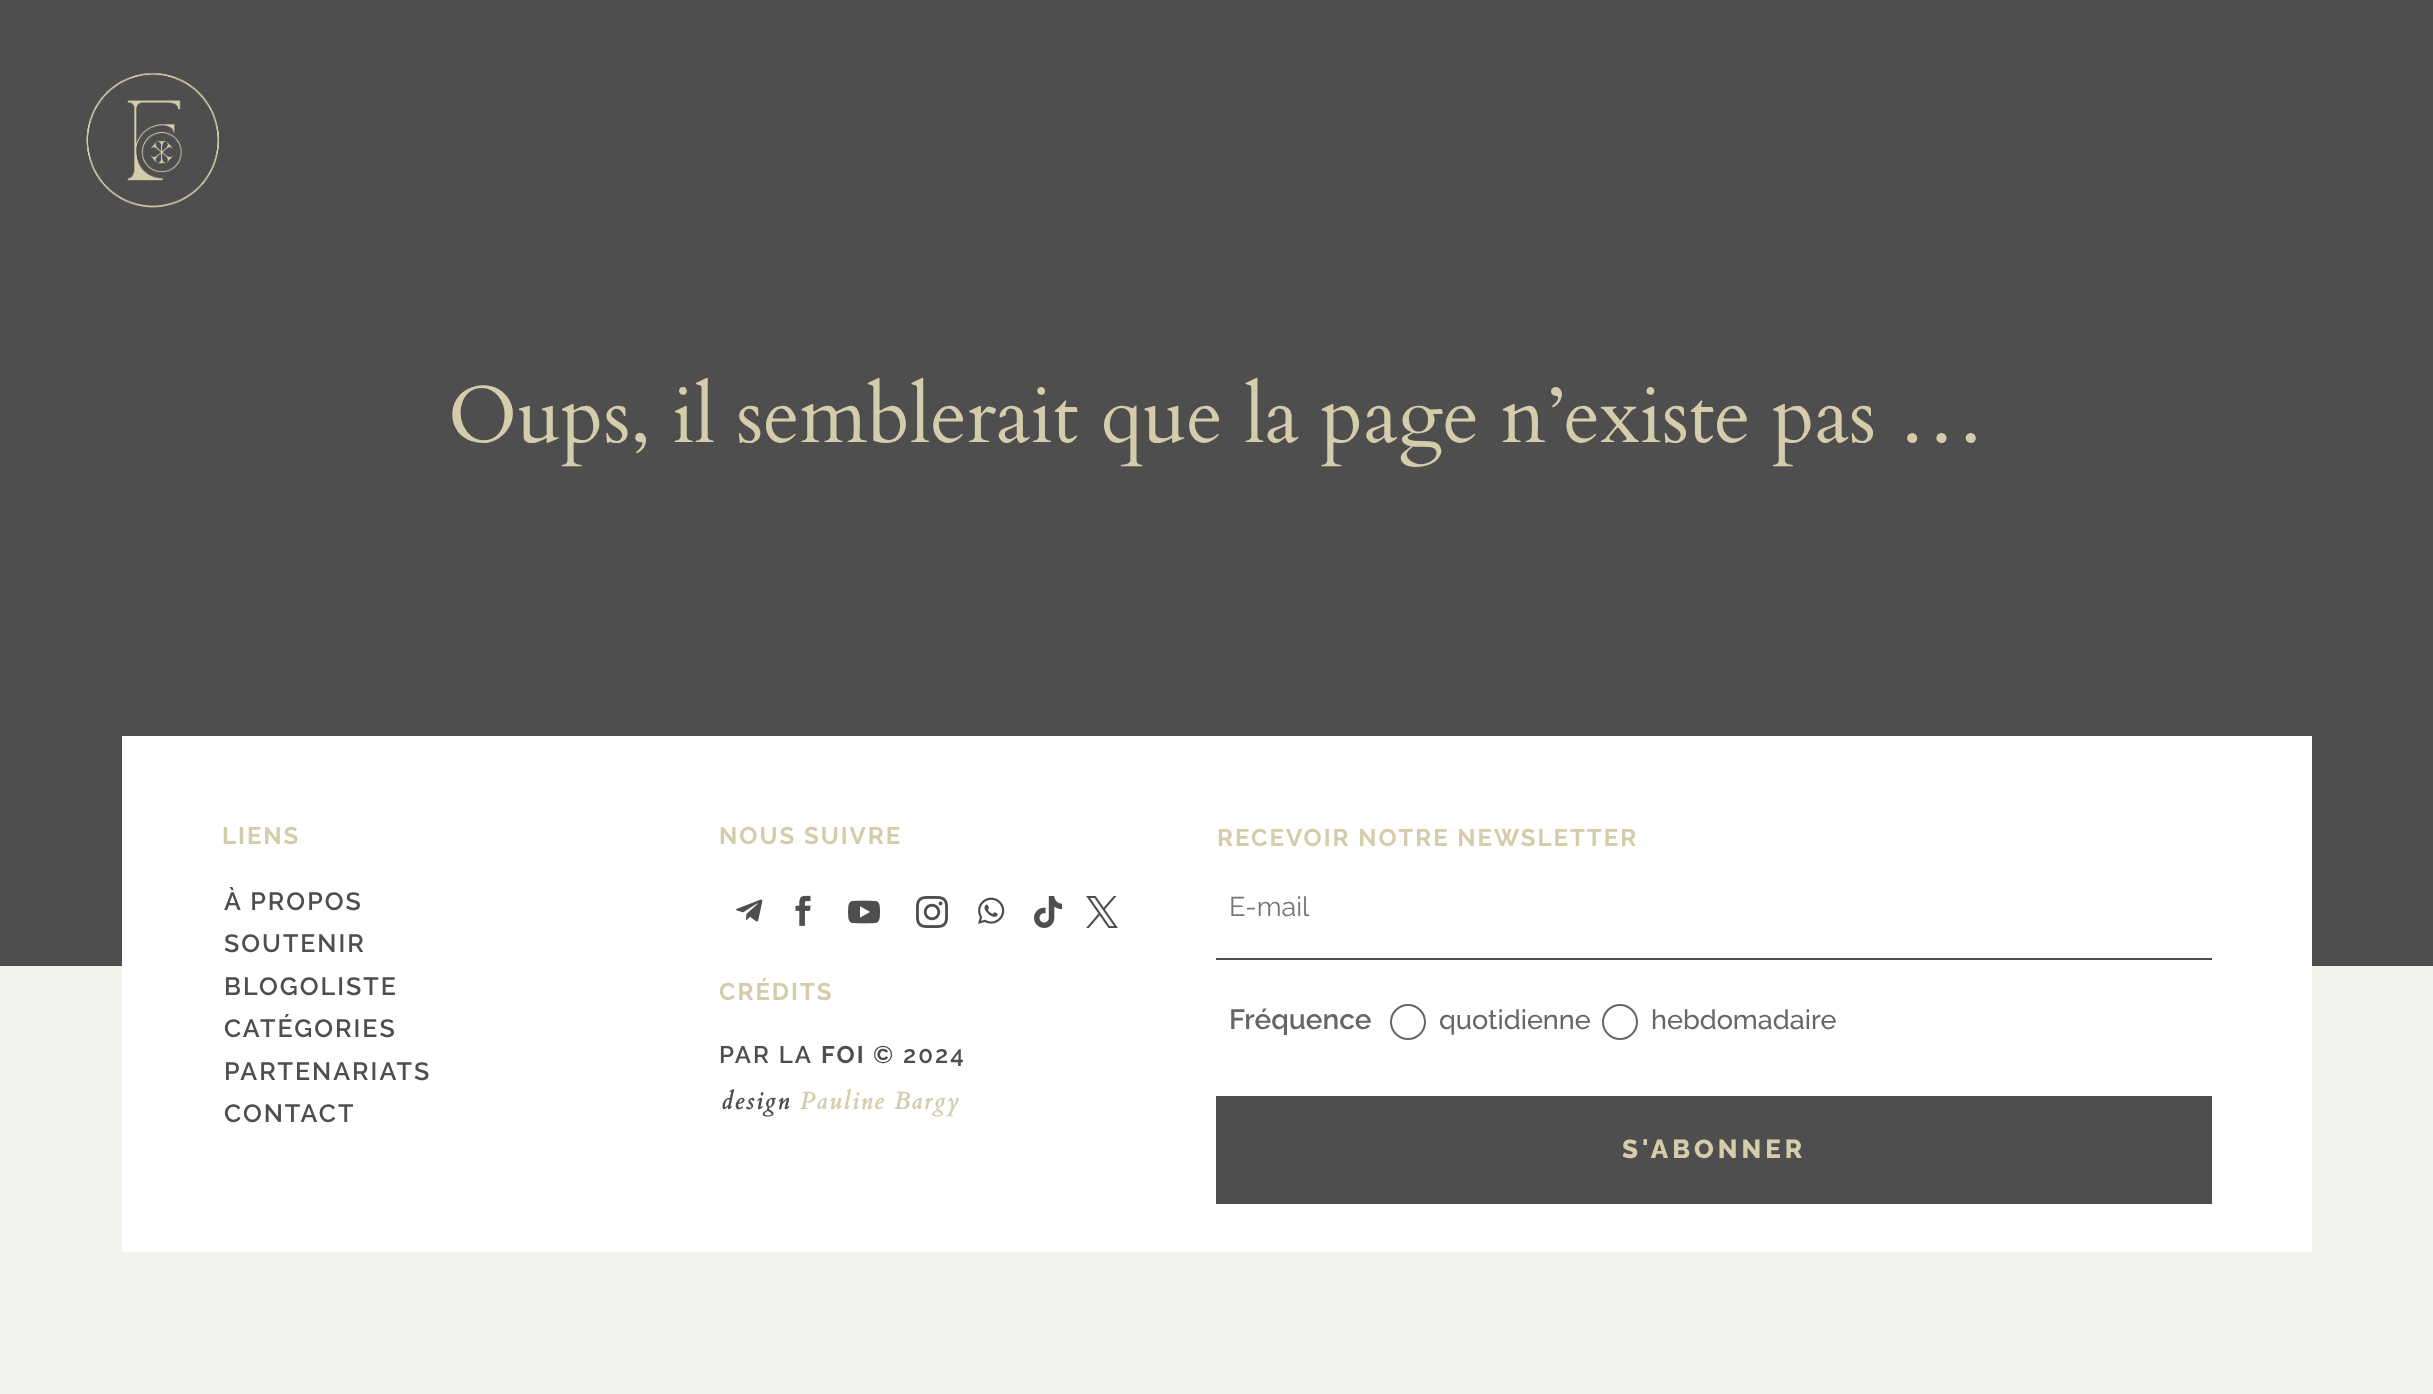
async function draw(canvas) {
  canvas.width = 2433
  canvas.height = 1394
  const ctx = canvas.getContext('2d')
  ctx.miterLimit = 4
  ctx.fontKerning = 'normal'
  async function loadImage(src) {
    const img = new Image()
    img.src = src
    await img.decode()
    return img
  }

  ctx.fillStyle = '#f2f3ed'
  ctx.fillRect(0, 0, 2433, 1394)
  ctx.fillStyle = '#4e4e4e'
  ctx.fillRect(0, 0, 2433, 966)
  ctx.drawImage(await loadImage('image0.png'), 86, 72, 133, 136)
  ctx.font = '80px Cardo'
  ctx.fillStyle = '#d5ccab'
  ctx.fillText('Oups, il semblerait que la page n’existe pas …', 448, 442)
  ctx.fillStyle = '#fff'
  ctx.fillRect(122, 736, 2190, 516)
  ctx.letterSpacing = '2px'
  ctx.font = 'bold 24px Raleway'
  ctx.fillStyle = '#d5ccab'
  ctx.fillText('LIENS', 222, 844)
  ctx.font = '600 25px Raleway'
  ctx.fillStyle = '#4e4e4e'
  ctx.fillText('À PROPOS', 224, 910)
  ctx.fillText('SOUTENIR', 224, 952)
  ctx.fillText('BLOGOLISTE', 224, 995)
  ctx.fillText('CATÉGORIES', 224, 1037)
  ctx.fillText('PARTENARIATS', 224, 1080)
  ctx.fillText('CONTACT', 224, 1122)
  ctx.font = 'bold 24px Raleway'
  ctx.fillStyle = '#d5ccab'
  ctx.fillText('NOUS SUIVRE', 719, 844)
  ctx.drawImage(await loadImage('image1.png'), 736, 899, 27, 23)
  ctx.drawImage(await loadImage('image2.png'), 795, 895, 16, 31)
  ctx.drawImage(await loadImage('image3.png'), 848, 900, 32, 24)
  ctx.drawImage(await loadImage('image4.png'), 916, 896, 32, 32)
  ctx.drawImage(await loadImage('image5.png'), 978, 897, 27, 27)
  ctx.drawImage(await loadImage('image6.png'), 1034, 896, 28, 32)
  ctx.drawImage(await loadImage('image7.png'), 1086, 896, 32, 32)
  ctx.fillText('CRÉDITS', 719, 1000)
  ctx.font = '600 24px Raleway'
  ctx.fillStyle = '#4e4e4e'
  ctx.fillText('PAR LA', 719, 1063)
  ctx.font = 'bold 24px Raleway'
  ctx.fillText('FOI', 821, 1063)
  ctx.font = '600 24px Raleway'
  ctx.fillText('© 2024', 873, 1063)
  ctx.font = 'italic bold 24px Cardo'
  ctx.fillText('design', 721, 1109)
  ctx.fillStyle = '#d5ccab'
  ctx.fillText('Pauline Bargy', 800, 1109)
  ctx.font = 'bold 24px Raleway'
  ctx.fillText('RECEVOIR NOTRE NEWSLETTER', 1217, 846)
  ctx.fillStyle = '#4e4e4e'
  ctx.fillRect(1216, 958, 996, 2)
  ctx.letterSpacing = '0px'
  ctx.font = '27px Raleway'
  ctx.fillStyle = '#757575'
  ctx.fillText('E-mail', 1229, 916)
  ctx.font = '600 28px Raleway'
  ctx.fillStyle = '#666'
  ctx.fillText('Fréquence', 1229, 1029)
  ctx.beginPath()
  ctx.arc(1408, 1022, 17, 0, 2 * Math.PI)
  ctx.strokeStyle = '#666'
  ctx.lineWidth = 2
  ctx.stroke()
  ctx.font = '500 27px Raleway'
  ctx.fillText('quotidienne', 1439, 1029)
  ctx.beginPath()
  ctx.arc(1620, 1022, 17, 0, 2 * Math.PI)
  ctx.stroke()
  ctx.fillText('hebdomadaire', 1651, 1029)
  ctx.fillStyle = '#4e4e4e'
  ctx.fillRect(1216, 1096, 996, 108)
  ctx.letterSpacing = '4px'
  ctx.font = '800 26px Raleway'
  ctx.fillStyle = '#d5ccab'
  ctx.fillText('S\'ABONNER', 1622, 1158)
}

draw(document.querySelector('canvas'))
